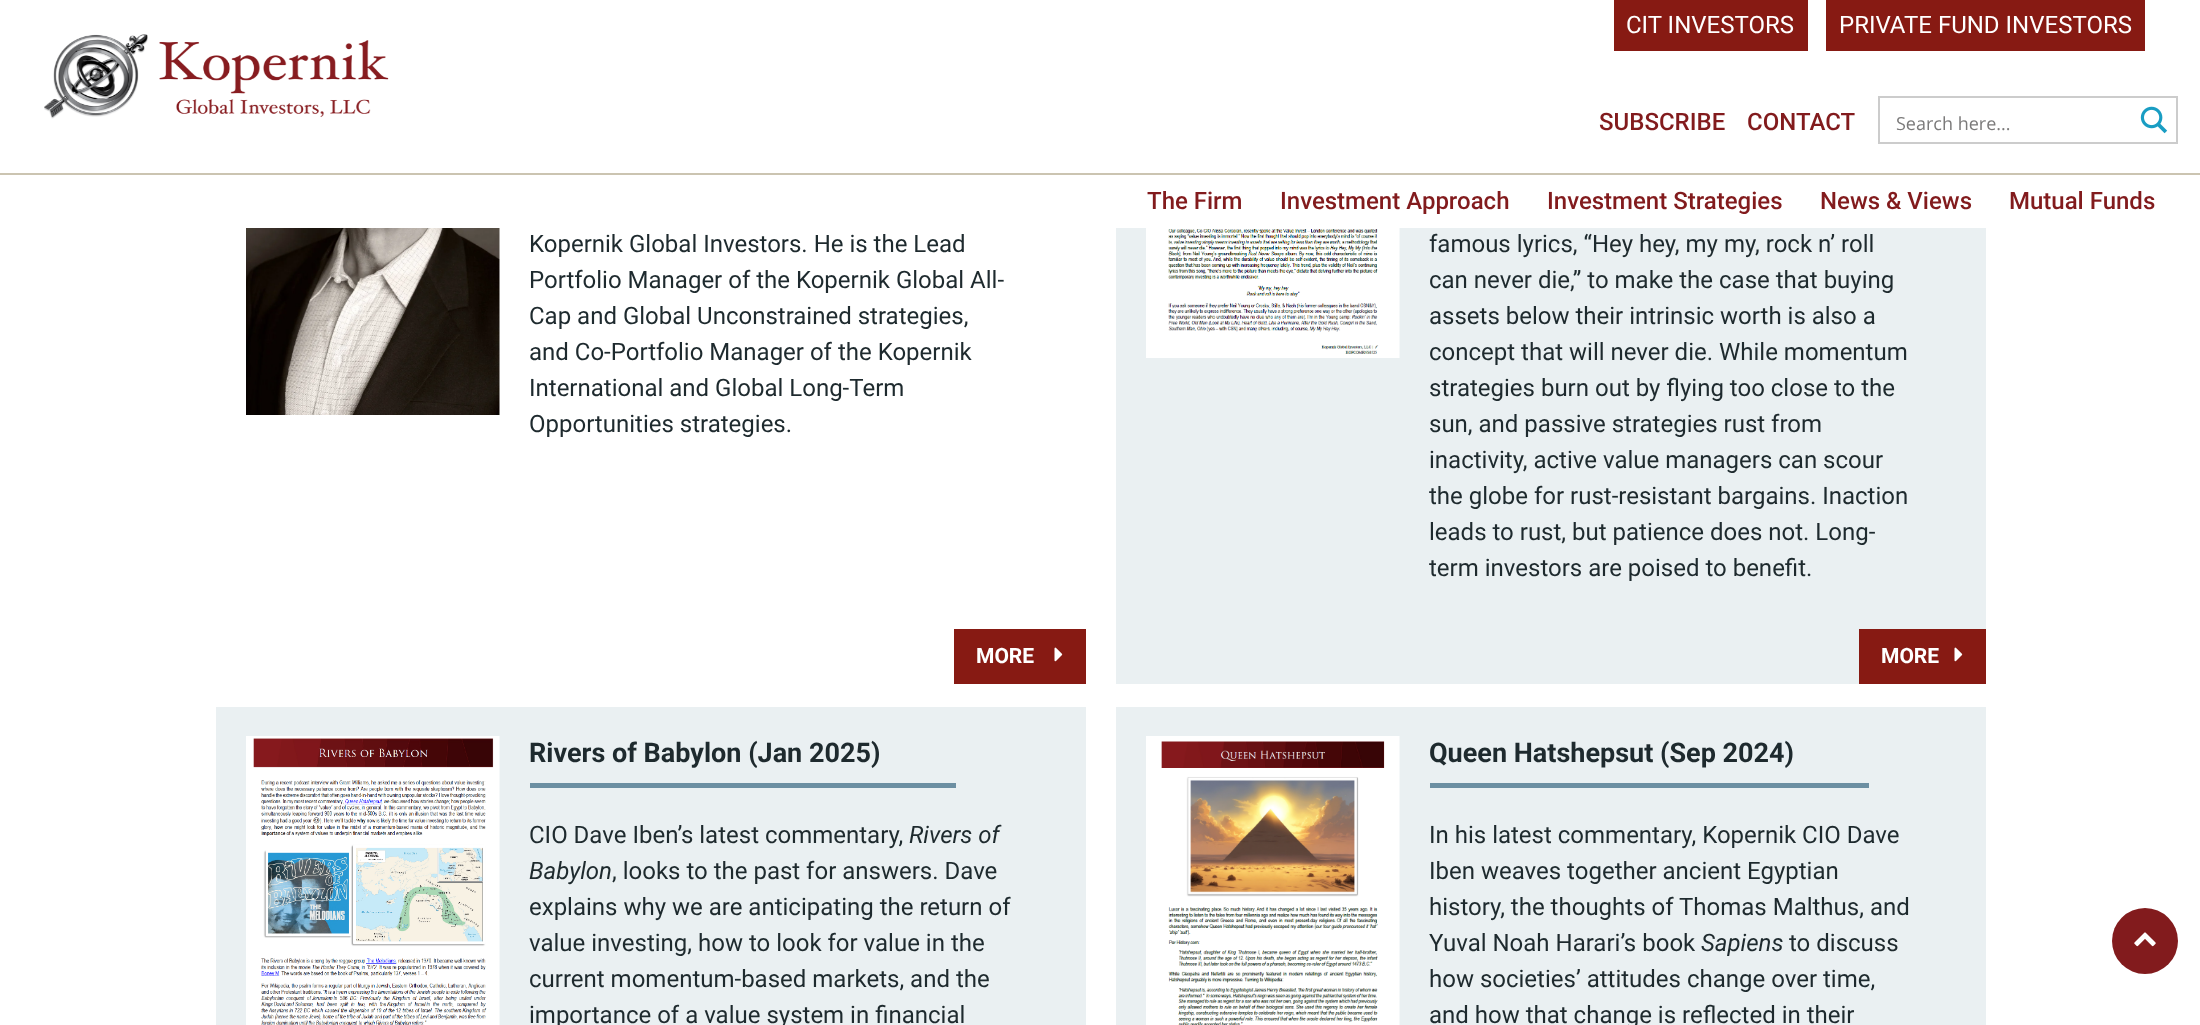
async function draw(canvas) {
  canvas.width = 2200
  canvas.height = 1025
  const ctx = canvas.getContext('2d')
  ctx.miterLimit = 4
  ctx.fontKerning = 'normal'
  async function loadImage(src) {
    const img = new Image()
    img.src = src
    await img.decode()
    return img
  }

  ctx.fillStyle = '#fff'
  ctx.fillRect(0, 0, 2200, 1025)
  ctx.fillStyle = '#cbc4b1'
  ctx.fillRect(0, 173, 2200, 2)
  ctx.drawImage(await loadImage('image0.png'), 44, 34, 345, 85)
  ctx.fillStyle = '#871a13'
  ctx.fillRect(1614, 0, 194, 51)
  ctx.font = '24px Roboto'
  ctx.fillStyle = '#fff'
  ctx.fillText('CIT INVESTORS', 1626, 33)
  ctx.fillStyle = '#871a13'
  ctx.fillRect(1826, 0, 319, 51)
  ctx.fillStyle = '#fff'
  ctx.fillText('PRIVATE FUND INVESTORS', 1839, 33)
  ctx.font = '500 24px Roboto'
  ctx.fillStyle = '#821b1d'
  ctx.fillText('SUBSCRIBE', 1599, 130)
  ctx.fillText('CONTACT', 1747, 130)
  ctx.strokeStyle = '#ccc'
  ctx.lineWidth = 2
  ctx.strokeRect(1879, 97, 298, 46)
  ctx.font = '18px Open Sans'
  ctx.fillStyle = '#7b7a7a'
  ctx.fillText('Search here...', 1896, 130)
  ctx.drawImage(await loadImage('image1.png'), 2140, 106, 28, 28)
  ctx.font = '500 24px Roboto'
  ctx.fillStyle = '#821b1d'
  ctx.fillText('The Firm', 1147, 209)
  ctx.fillText('Investment Approach', 1280, 209)
  ctx.fillText('Investment Strategies', 1547, 209)
  ctx.fillText('News & Views', 1820, 209)
  ctx.fillText('Mutual Funds', 2009, 209)
  ctx.drawImage(await loadImage('image2.png'), 246, 228, 254, 187)
  ctx.font = '24px Roboto'
  ctx.fillStyle = '#1e2a2e'
  ctx.fillText('Kopernik Global Investors. He is the Lead', 529, 252)
  ctx.fillText('Portfolio Manager of the Kopernik Global All-', 529, 288)
  ctx.fillText('Cap and Global Unconstrained strategies,', 529, 324)
  ctx.fillText('and Co-Portfolio Manager of the Kopernik', 529, 360)
  ctx.fillText('International and Global Long-Term', 529, 396)
  ctx.fillText('Opportunities strategies.', 529, 432)
  ctx.fillStyle = '#871a13'
  ctx.fillRect(954, 629, 132, 55)
  ctx.font = 'bold 21px Roboto'
  ctx.fillStyle = '#fff'
  ctx.fillText('MORE', 976, 663)
  ctx.drawImage(await loadImage('image3.png'), 1054, 647, 9, 15)
  ctx.fillStyle = '#eaf0f2'
  ctx.fillRect(1116, 228, 870, 456)
  ctx.drawImage(await loadImage('image4.png'), 1146, 228, 254, 130)
  ctx.font = '24px Roboto'
  ctx.fillStyle = '#1e2a2e'
  ctx.fillText('famous lyrics, “Hey hey, my my, rock n’ roll', 1429, 252)
  ctx.fillText('can never die,” to make the case that buying', 1429, 288)
  ctx.fillText('assets below their intrinsic worth is also a', 1429, 324)
  ctx.fillText('concept that will never die. While momentum', 1429, 360)
  ctx.fillText('strategies burn out by flying too close to the', 1429, 396)
  ctx.fillText('sun, and passive strategies rust from', 1429, 432)
  ctx.fillText('inactivity, active value managers can scour', 1429, 468)
  ctx.fillText('the globe for rust-resistant bargains. Inaction', 1429, 504)
  ctx.fillText('leads to rust, but patience does not. Long-', 1429, 540)
  ctx.fillText('term investors are poised to benefit.', 1429, 576)
  ctx.fillStyle = '#871a13'
  ctx.fillRect(1859, 629, 127, 55)
  ctx.font = 'bold 21px Roboto'
  ctx.fillStyle = '#fff'
  ctx.fillText('MORE', 1881, 663)
  ctx.drawImage(await loadImage('image3.png'), 1954, 647, 9, 15)
  ctx.fillStyle = '#eaf0f2'
  ctx.fillRect(216, 707, 870, 318)
  ctx.drawImage(await loadImage('image5.png'), 246, 736, 254, 289)
  ctx.font = 'bold 27px Roboto'
  ctx.fillStyle = '#1e2a2e'
  ctx.fillText('Rivers of Babylon (Jan 2025)', 529, 762)
  ctx.fillStyle = '#6c8fa2'
  ctx.fillRect(530, 783, 426, 5)
  ctx.font = '24px Roboto'
  ctx.fillStyle = '#1e2a2e'
  ctx.fillText('CIO Dave Iben’s latest commentary,', 529, 843)
  ctx.font = 'italic 24px Roboto'
  ctx.fillText('Rivers of', 909, 843)
  ctx.fillText('Babylon', 529, 879)
  ctx.font = '24px Roboto'
  ctx.fillText(', looks to the past for answers. Dave', 612, 879)
  ctx.fillText('explains why we are anticipating the return of', 529, 915)
  ctx.fillText('value investing, how to look for value in the', 529, 951)
  ctx.fillText('current momentum-based markets, and the', 529, 987)
  ctx.fillText('importance of a value system in financial', 529, 1023)
  ctx.fillStyle = '#eaf0f2'
  ctx.fillRect(1116, 707, 870, 318)
  ctx.drawImage(await loadImage('image6.png'), 1146, 736, 254, 289)
  ctx.font = 'bold 27px Roboto'
  ctx.fillStyle = '#1e2a2e'
  ctx.fillText('Queen Hatshepsut (Sep 2024)', 1429, 762)
  ctx.fillStyle = '#6c8fa2'
  ctx.fillRect(1430, 783, 439, 5)
  ctx.font = '24px Roboto'
  ctx.fillStyle = '#1e2a2e'
  ctx.fillText('In his latest commentary, Kopernik CIO Dave', 1429, 843)
  ctx.fillText('Iben weaves together ancient Egyptian', 1429, 879)
  ctx.fillText('history, the thoughts of Thomas Malthus, and', 1429, 915)
  ctx.fillText('Yuval Noah Harari’s book', 1429, 951)
  ctx.font = 'italic 24px Roboto'
  ctx.fillText('Sapiens', 1701, 951)
  ctx.font = '24px Roboto'
  ctx.fillText('to discuss', 1789, 951)
  ctx.fillText('how societies’ attitudes change over time,', 1429, 987)
  ctx.fillText('and how that change is reflected in their', 1429, 1023)
  ctx.fillStyle = '#821b1d'
  ctx.beginPath()
  ctx.arc(2145, 941, 33, 0, 2 * Math.PI)
  ctx.fill()
  ctx.drawImage(await loadImage('image7.png'), 2134, 932, 22, 15)
}

draw(document.querySelector('canvas'))
